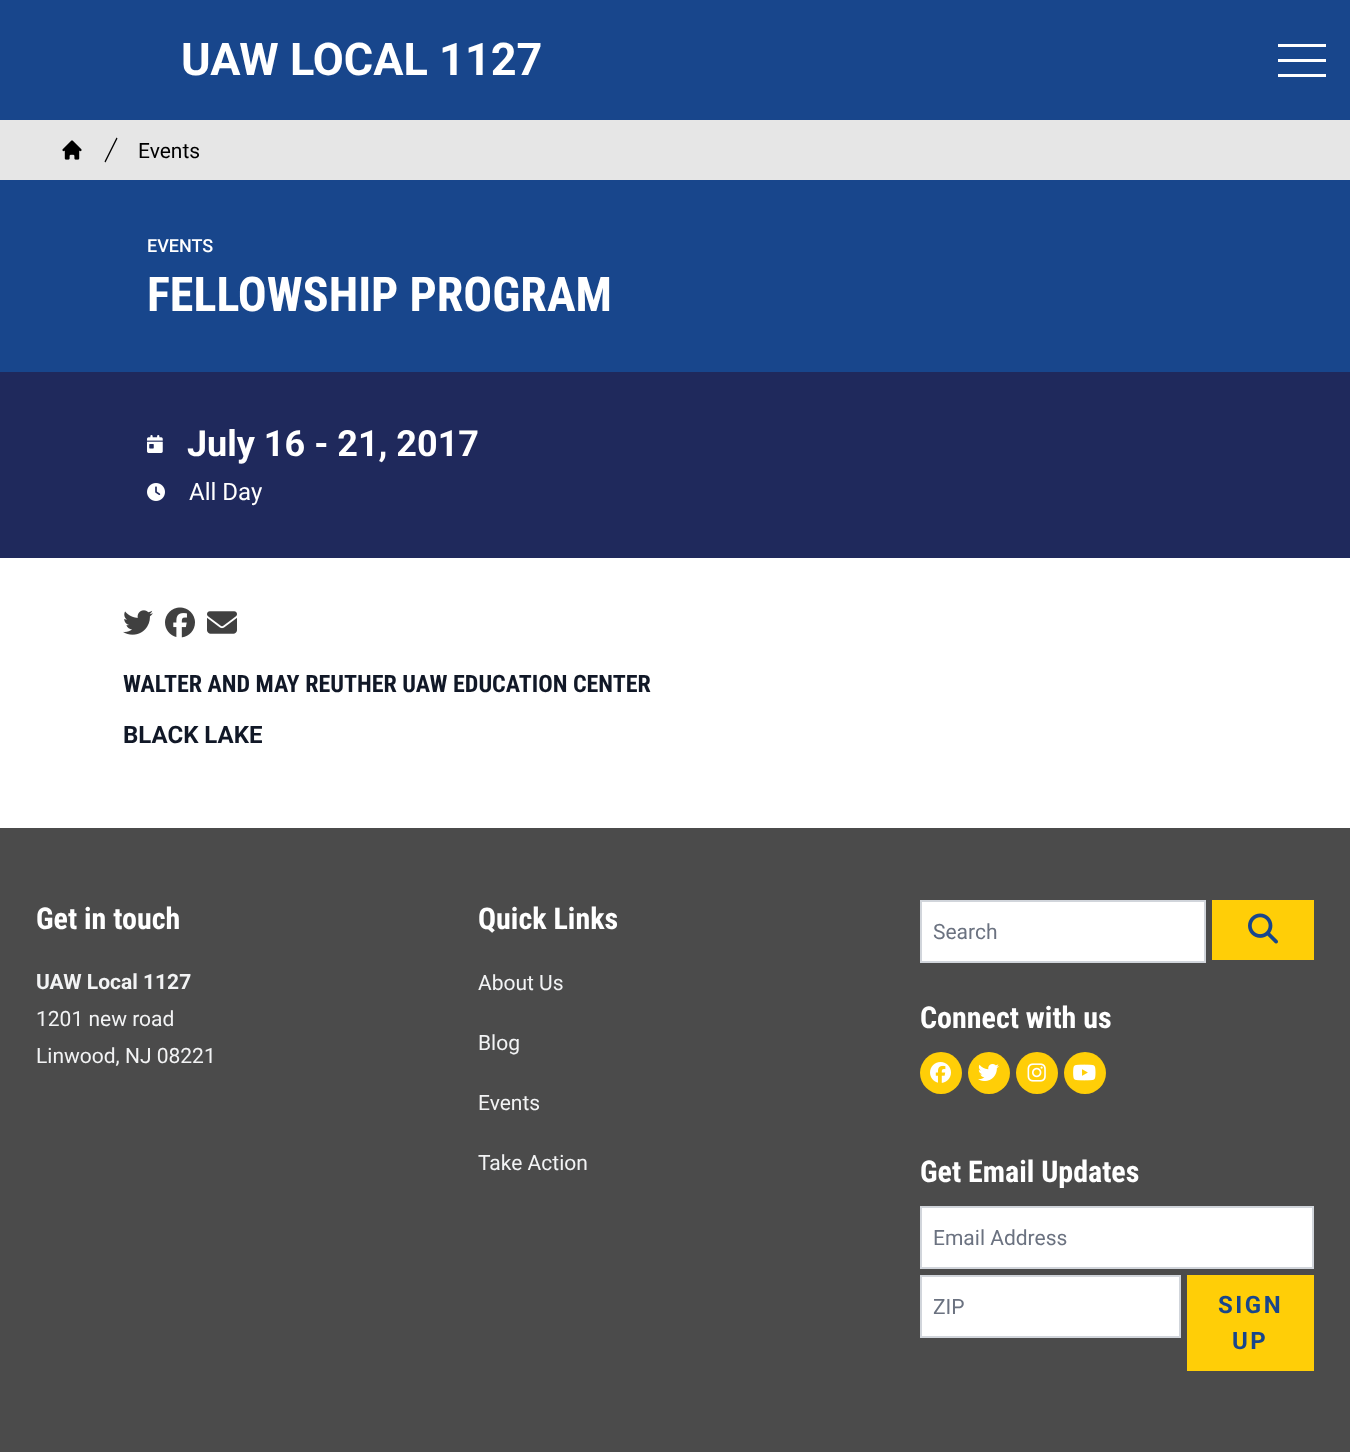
async function draw(canvas) {
  canvas.width = 1350
  canvas.height = 1452
  const ctx = canvas.getContext('2d')
  ctx.miterLimit = 4
  ctx.fontKerning = 'normal'
  async function loadImage(src) {
    const img = new Image()
    img.src = src
    await img.decode()
    return img
  }

  ctx.fillStyle = '#fff'
  ctx.fillRect(0, 0, 1350, 1452)
  ctx.fillStyle = '#18468c'
  ctx.fillRect(0, 0, 1350, 120)
  ctx.font = 'bold 45px Roboto'
  ctx.fillStyle = '#fff'
  ctx.fillText('UAW LOCAL 1127', 181, 75)
  ctx.fillRect(1278, 44, 48, 3)
  ctx.fillRect(1278, 59, 48, 3)
  ctx.fillRect(1278, 74, 48, 3)
  ctx.fillStyle = '#e6e6e6'
  ctx.fillRect(0, 120, 1350, 60)
  ctx.drawImage(await loadImage('image0.png'), 62, 140, 20, 20)
  ctx.fillStyle = '#000'
  ctx.beginPath()
  ctx.moveTo(104.5, 161.5)
  ctx.lineTo(116.5, 137.5)
  ctx.lineTo(117.5, 138.5)
  ctx.lineTo(105.5, 162.5)
  ctx.closePath()
  ctx.fill()
  ctx.font = '21px Roboto'
  ctx.fillText('Events', 138, 158)
  ctx.fillStyle = '#18468c'
  ctx.fillRect(0, 180, 1350, 192)
  ctx.font = '500 18px Roboto'
  ctx.fillStyle = '#fff'
  ctx.fillText('EVENTS', 147, 252)
  ctx.font = 'bold 48px Roboto Condensed'
  ctx.fillText('FELLOWSHIP PROGRAM', 147, 311)
  ctx.fillStyle = '#1f295c'
  ctx.fillRect(0, 372, 1350, 186)
  ctx.drawImage(await loadImage('image1.png'), 147, 435, 16, 18)
  ctx.font = 'bold 36px Roboto'
  ctx.fillStyle = '#fff'
  ctx.fillText('July 16 - 21, 2017', 187, 456)
  ctx.drawImage(await loadImage('image2.png'), 147, 483, 18, 18)
  ctx.font = '24px Roboto'
  ctx.fillText('All Day', 189, 500)
  ctx.drawImage(await loadImage('image3.png'), 123, 610, 30, 25)
  ctx.drawImage(await loadImage('image4.png'), 165, 607, 30, 31)
  ctx.drawImage(await loadImage('image5.png'), 207, 611, 30, 23)
  ctx.font = 'bold 24px Roboto Condensed'
  ctx.fillStyle = '#111827'
  ctx.fillText('WALTER AND MAY REUTHER UAW EDUCATION CENTER', 123, 692)
  ctx.font = 'bold 24px Roboto'
  ctx.fillText('BLACK LAKE', 123, 743)
  ctx.fillStyle = '#4b4b4b'
  ctx.fillRect(0, 828, 1350, 624)
  ctx.font = 'bold 30px Roboto Condensed'
  ctx.fillStyle = '#fff'
  ctx.fillText('Get in touch', 36, 929)
  ctx.font = 'bold 21px Roboto'
  ctx.fillStyle = '#f2f3f4'
  ctx.fillText('UAW Local 1127', 36, 989)
  ctx.font = '21px Roboto'
  ctx.fillText('1201 new road', 36, 1026)
  ctx.fillText('Linwood, NJ 08221', 36, 1063)
  ctx.font = 'bold 30px Roboto Condensed'
  ctx.fillStyle = '#fff'
  ctx.fillText('Quick Links', 478, 929)
  ctx.font = '21px Roboto'
  ctx.fillStyle = '#f2f3f4'
  ctx.fillText('About Us', 478, 990)
  ctx.fillText('Blog', 478, 1050)
  ctx.fillText('Events', 478, 1110)
  ctx.fillText('Take Action', 478, 1170)
  ctx.fillStyle = '#fff'
  ctx.beginPath()
  ctx.rect(921, 901, 284, 61)
  ctx.fill()
  ctx.strokeStyle = '#d1d5db'
  ctx.lineWidth = 2
  ctx.stroke()
  ctx.fillStyle = '#6b7280'
  ctx.fillText('Search', 933, 939)
  ctx.fillStyle = '#ffce07'
  ctx.fillRect(1212, 900, 102, 60)
  ctx.drawImage(await loadImage('image6.png'), 1248, 913, 30, 31)
  ctx.font = 'bold 30px Roboto Condensed'
  ctx.fillStyle = '#fff'
  ctx.fillText('Connect with us', 920, 1028)
  ctx.fillStyle = '#ffce07'
  ctx.beginPath()
  ctx.arc(941, 1073, 21, 0, 2 * Math.PI)
  ctx.fill()
  ctx.drawImage(await loadImage('image7.png'), 930, 1062, 21, 21)
  ctx.beginPath()
  ctx.arc(989, 1073, 21, 0, 2 * Math.PI)
  ctx.fill()
  ctx.drawImage(await loadImage('image8.png'), 978, 1064, 21, 17)
  ctx.beginPath()
  ctx.arc(1037, 1073, 21, 0, 2 * Math.PI)
  ctx.fill()
  ctx.drawImage(await loadImage('image9.png'), 1027, 1063, 19, 19)
  ctx.beginPath()
  ctx.arc(1085, 1073, 21, 0, 2 * Math.PI)
  ctx.fill()
  ctx.drawImage(await loadImage('image10.png'), 1073, 1064, 23, 17)
  ctx.fillStyle = '#fff'
  ctx.fillText('Get Email Updates', 920, 1182)
  ctx.beginPath()
  ctx.rect(921, 1207, 392, 61)
  ctx.fill()
  ctx.stroke()
  ctx.font = '21px Roboto'
  ctx.fillStyle = '#6b7280'
  ctx.fillText('Email Address', 933, 1245)
  ctx.fillStyle = '#fff'
  ctx.beginPath()
  ctx.rect(921, 1276, 259, 61)
  ctx.fill()
  ctx.stroke()
  ctx.fillStyle = '#6b7280'
  ctx.fillText('ZIP', 933, 1314)
  ctx.fillStyle = '#ffce07'
  ctx.fillRect(1187, 1275, 127, 96)
  ctx.letterSpacing = '2.5px'
  ctx.font = 'bold 24px Roboto'
  ctx.fillStyle = '#18468c'
  ctx.fillText('SIGN', 1218, 1313)
  ctx.fillText('UP', 1232, 1349)
}

draw(document.querySelector('canvas'))
